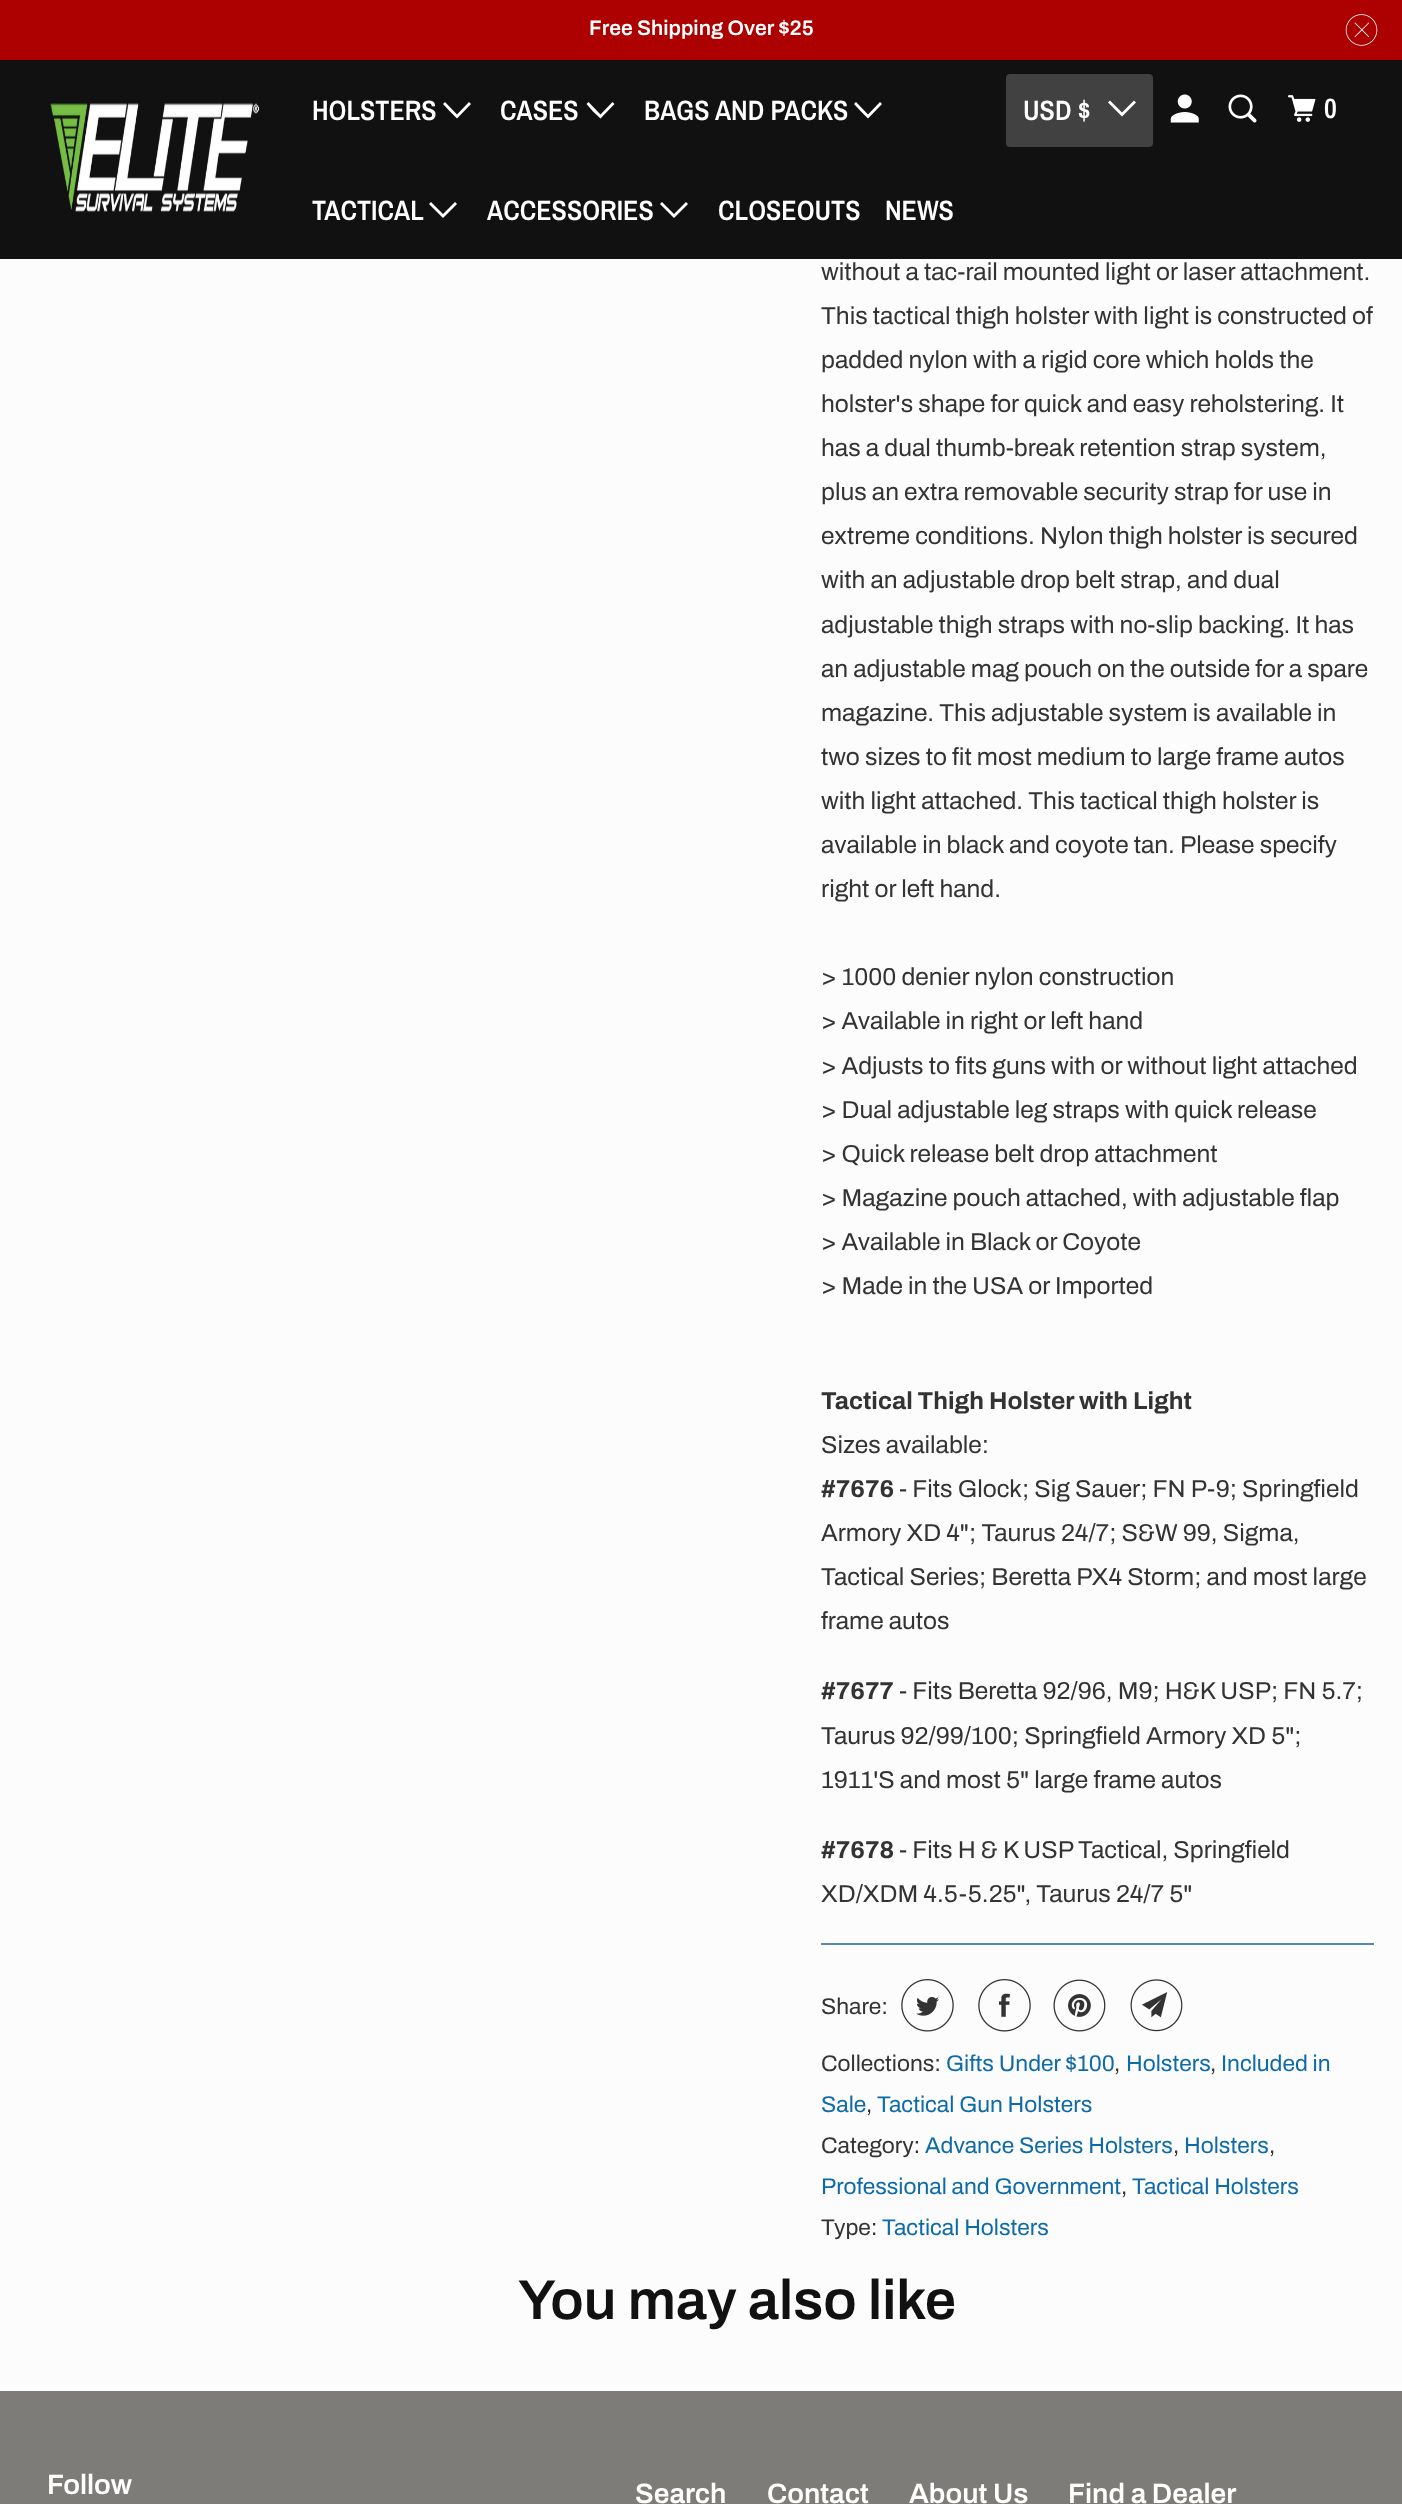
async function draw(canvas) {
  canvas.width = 1402
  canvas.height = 2504
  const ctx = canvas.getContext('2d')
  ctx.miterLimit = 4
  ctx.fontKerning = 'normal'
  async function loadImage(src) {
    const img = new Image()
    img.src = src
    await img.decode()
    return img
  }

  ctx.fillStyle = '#fcfcfc'
  ctx.fillRect(0, 0, 1402, 2504)
  ctx.fillStyle = '#ad0000'
  ctx.fillRect(0, 0, 1402, 60)
  ctx.font = '600 21px Archivo'
  ctx.fillStyle = '#fff'
  ctx.fillText('Free Shipping Over $25', 589, 35)
  ctx.drawImage(await loadImage('image0.png'), 1345, 14, 33, 32)
  ctx.fillStyle = '#111'
  ctx.fillRect(0, 60, 1402, 199)
  ctx.drawImage(await loadImage('image1.png'), 50, 103, 210, 109)
  ctx.font = '600 28px Archivo Narrow'
  ctx.fillStyle = '#fff'
  ctx.fillText('HOLSTERS', 312, 120)
  ctx.beginPath()
  ctx.moveTo(450, 111.5)
  ctx.lineTo(443, 104)
  ctx.lineTo(445, 102)
  ctx.lineTo(457, 114.5)
  ctx.lineTo(469, 102)
  ctx.lineTo(471, 104)
  ctx.lineTo(457, 118.5)
  ctx.closePath()
  ctx.fill()
  ctx.fillText('CASES', 500, 120)
  ctx.beginPath()
  ctx.moveTo(593, 111.5)
  ctx.lineTo(586.5, 104)
  ctx.lineTo(588.5, 102)
  ctx.lineTo(600.5, 114.5)
  ctx.lineTo(612.5, 102)
  ctx.lineTo(614.5, 104)
  ctx.lineTo(600.5, 118.5)
  ctx.closePath()
  ctx.fill()
  ctx.fillText('BAGS AND PACKS', 644, 120)
  ctx.beginPath()
  ctx.moveTo(861, 111.5)
  ctx.lineTo(854, 104)
  ctx.lineTo(856, 102)
  ctx.lineTo(868, 114.5)
  ctx.lineTo(880, 102)
  ctx.lineTo(882, 104)
  ctx.lineTo(868, 118.5)
  ctx.closePath()
  ctx.fill()
  ctx.fillText('TACTICAL', 312, 220)
  ctx.beginPath()
  ctx.moveTo(436, 211)
  ctx.lineTo(429, 204)
  ctx.lineTo(431, 202)
  ctx.lineTo(443, 214)
  ctx.lineTo(455, 202)
  ctx.lineTo(457, 204)
  ctx.lineTo(443, 218)
  ctx.closePath()
  ctx.fill()
  ctx.fillText('ACCESSORIES', 487, 220)
  ctx.beginPath()
  ctx.moveTo(667, 211)
  ctx.lineTo(660, 204)
  ctx.lineTo(662, 202)
  ctx.lineTo(674, 214)
  ctx.lineTo(686, 202)
  ctx.lineTo(688, 204)
  ctx.lineTo(674, 218)
  ctx.closePath()
  ctx.fill()
  ctx.fillText('CLOSEOUTS', 718, 220)
  ctx.fillText('NEWS', 885, 220)
  ctx.fillStyle = '#414141'
  ctx.beginPath()
  ctx.roundRect(1006, 74, 147, 73, 4)
  ctx.fill()
  ctx.fillStyle = '#fff'
  ctx.fillText('USD $', 1023, 120)
  ctx.beginPath()
  ctx.moveTo(1115, 109.5)
  ctx.lineTo(1108, 102.5)
  ctx.lineTo(1110, 100.5)
  ctx.lineTo(1122, 112.5)
  ctx.lineTo(1134, 100.5)
  ctx.lineTo(1136, 102.5)
  ctx.lineTo(1122, 116.5)
  ctx.closePath()
  ctx.fill()
  ctx.drawImage(await loadImage('image2.png'), 1170, 94, 29, 29)
  ctx.drawImage(await loadImage('image3.png'), 1228, 94, 29, 29)
  ctx.drawImage(await loadImage('image4.png'), 1288, 95, 28, 27)
  ctx.fillText('0', 1324, 118)
  ctx.font = '24.5px Archivo'
  ctx.fillStyle = '#333'
  ctx.fillText('without a tac-rail mounted light or laser attachment.', 821, 280)
  ctx.fillText('This tactical thigh holster with light is constructed of', 821, 324)
  ctx.fillText('padded nylon with a rigid core which holds the', 821, 368)
  ctx.fillText('holster\'s shape for quick and easy reholstering. It', 821, 412)
  ctx.fillText('has a dual thumb-break retention strap system,', 821, 456)
  ctx.fillText('plus an extra removable security strap for use in', 821, 500)
  ctx.fillText('extreme conditions. Nylon thigh holster is secured', 821, 544)
  ctx.fillText('with an adjustable drop belt strap, and dual', 821, 588)
  ctx.fillText('adjustable thigh straps with no-slip backing. It has', 821, 633)
  ctx.fillText('an adjustable mag pouch on the outside for a spare', 821, 677)
  ctx.fillText('magazine. This adjustable system is available in', 821, 721)
  ctx.fillText('two sizes to fit most medium to large frame autos', 821, 765)
  ctx.fillText('with light attached. This tactical thigh holster is', 821, 809)
  ctx.fillText('available in black and coyote tan. Please specify', 821, 853)
  ctx.fillText('right or left hand.', 821, 897)
  ctx.fillText('> 1000 denier nylon construction', 821, 985)
  ctx.fillText('> Available in right or left hand', 821, 1029)
  ctx.fillText('> Adjusts to fits guns with or without light attached', 821, 1074)
  ctx.fillText('> Dual adjustable leg straps with quick release', 821, 1118)
  ctx.fillText('> Quick release belt drop attachment', 821, 1162)
  ctx.fillText('> Magazine pouch attached, with adjustable flap', 821, 1206)
  ctx.fillText('> Available in Black or Coyote', 821, 1250)
  ctx.fillText('> Made in the USA or Imported', 821, 1294)
  ctx.font = 'bold 24.5px Archivo'
  ctx.fillText('Tactical Thigh Holster with Light', 821, 1409)
  ctx.font = '24.5px Archivo'
  ctx.fillText('Sizes available:', 821, 1453)
  ctx.font = 'bold 24.5px Archivo'
  ctx.fillText('#7676', 821, 1497)
  ctx.font = '24.5px Archivo'
  ctx.fillText('- Fits Glock; Sig Sauer; FN P-9; Springfield', 899, 1497)
  ctx.fillText('Armory XD 4"; Taurus 24/7; S&W 99, Sigma,', 821, 1541)
  ctx.fillText('Tactical Series; Beretta PX4 Storm; and most large', 821, 1585)
  ctx.fillText('frame autos', 821, 1629)
  ctx.font = 'bold 24.5px Archivo'
  ctx.fillText('#7677', 821, 1699)
  ctx.font = '24.5px Archivo'
  ctx.fillText('- Fits Beretta 92/96, M9; H&K USP; FN 5.7;', 899, 1699)
  ctx.fillText('Taurus 92/99/100; Springfield Armory XD 5";', 821, 1744)
  ctx.fillText('1911\'S and most 5" large frame autos', 821, 1788)
  ctx.font = 'bold 24.5px Archivo'
  ctx.fillText('#7678', 821, 1858)
  ctx.font = '24.5px Archivo'
  ctx.fillText('- Fits H & K USP Tactical, Springfield', 899, 1858)
  ctx.fillText('XD/XDM 4.5-5.25", Taurus 24/7 5"', 821, 1902)
  ctx.fillStyle = '#5888aa'
  ctx.fillRect(821, 1943, 553, 2)
  ctx.font = '22.75px Archivo'
  ctx.fillStyle = '#333'
  ctx.fillText('Share:', 821, 2014)
  ctx.drawImage(await loadImage('image5.png'), 901, 1979, 53, 53)
  ctx.drawImage(await loadImage('image6.png'), 978, 1979, 53, 53)
  ctx.drawImage(await loadImage('image7.png'), 1053, 1979, 53, 53)
  ctx.drawImage(await loadImage('image8.png'), 1130, 1979, 53, 53)
  ctx.fillText('Collections:', 821, 2071)
  ctx.fillStyle = '#0e6ba8'
  ctx.fillText('Gifts Under $100', 946, 2071)
  ctx.fillStyle = '#333'
  ctx.fillText(',', 1114, 2071)
  ctx.fillStyle = '#0e6ba8'
  ctx.fillText('Holsters', 1126, 2071)
  ctx.fillStyle = '#333'
  ctx.fillText(',', 1210, 2071)
  ctx.fillStyle = '#0e6ba8'
  ctx.fillText('Included in', 1221, 2071)
  ctx.fillText('Sale', 821, 2112)
  ctx.fillStyle = '#333'
  ctx.fillText(',', 866, 2112)
  ctx.fillStyle = '#0e6ba8'
  ctx.fillText('Tactical Gun Holsters', 877, 2112)
  ctx.fillStyle = '#333'
  ctx.fillText('Category:', 821, 2153)
  ctx.fillStyle = '#0e6ba8'
  ctx.fillText('Advance Series Holsters', 925, 2153)
  ctx.fillStyle = '#333'
  ctx.fillText(',', 1173, 2153)
  ctx.fillStyle = '#0e6ba8'
  ctx.fillText('Holsters', 1184, 2153)
  ctx.fillStyle = '#333'
  ctx.fillText(',', 1269, 2153)
  ctx.fillStyle = '#0e6ba8'
  ctx.fillText('Professional and Government', 821, 2194)
  ctx.fillStyle = '#333'
  ctx.fillText(',', 1121, 2194)
  ctx.fillStyle = '#0e6ba8'
  ctx.fillText('Tactical Holsters', 1132, 2194)
  ctx.fillStyle = '#333'
  ctx.fillText('Type:', 821, 2235)
  ctx.fillStyle = '#0e6ba8'
  ctx.fillText('Tactical Holsters', 882, 2235)
  ctx.font = '600 56px Archivo'
  ctx.fillStyle = '#111'
  ctx.fillText('You may also like', 518, 2319)
  ctx.fillStyle = '#7d7c78'
  ctx.fillRect(0, 2391, 1402, 113)
  ctx.font = '600 28px Archivo'
  ctx.fillStyle = '#fff'
  ctx.fillText('Follow', 47, 2494)
  ctx.fillText('Search', 635, 2503)
  ctx.fillText('Contact', 767, 2503)
  ctx.fillText('About Us', 909, 2503)
  ctx.fillText('Find a Dealer', 1068, 2503)
}

draw(document.querySelector('canvas'))
